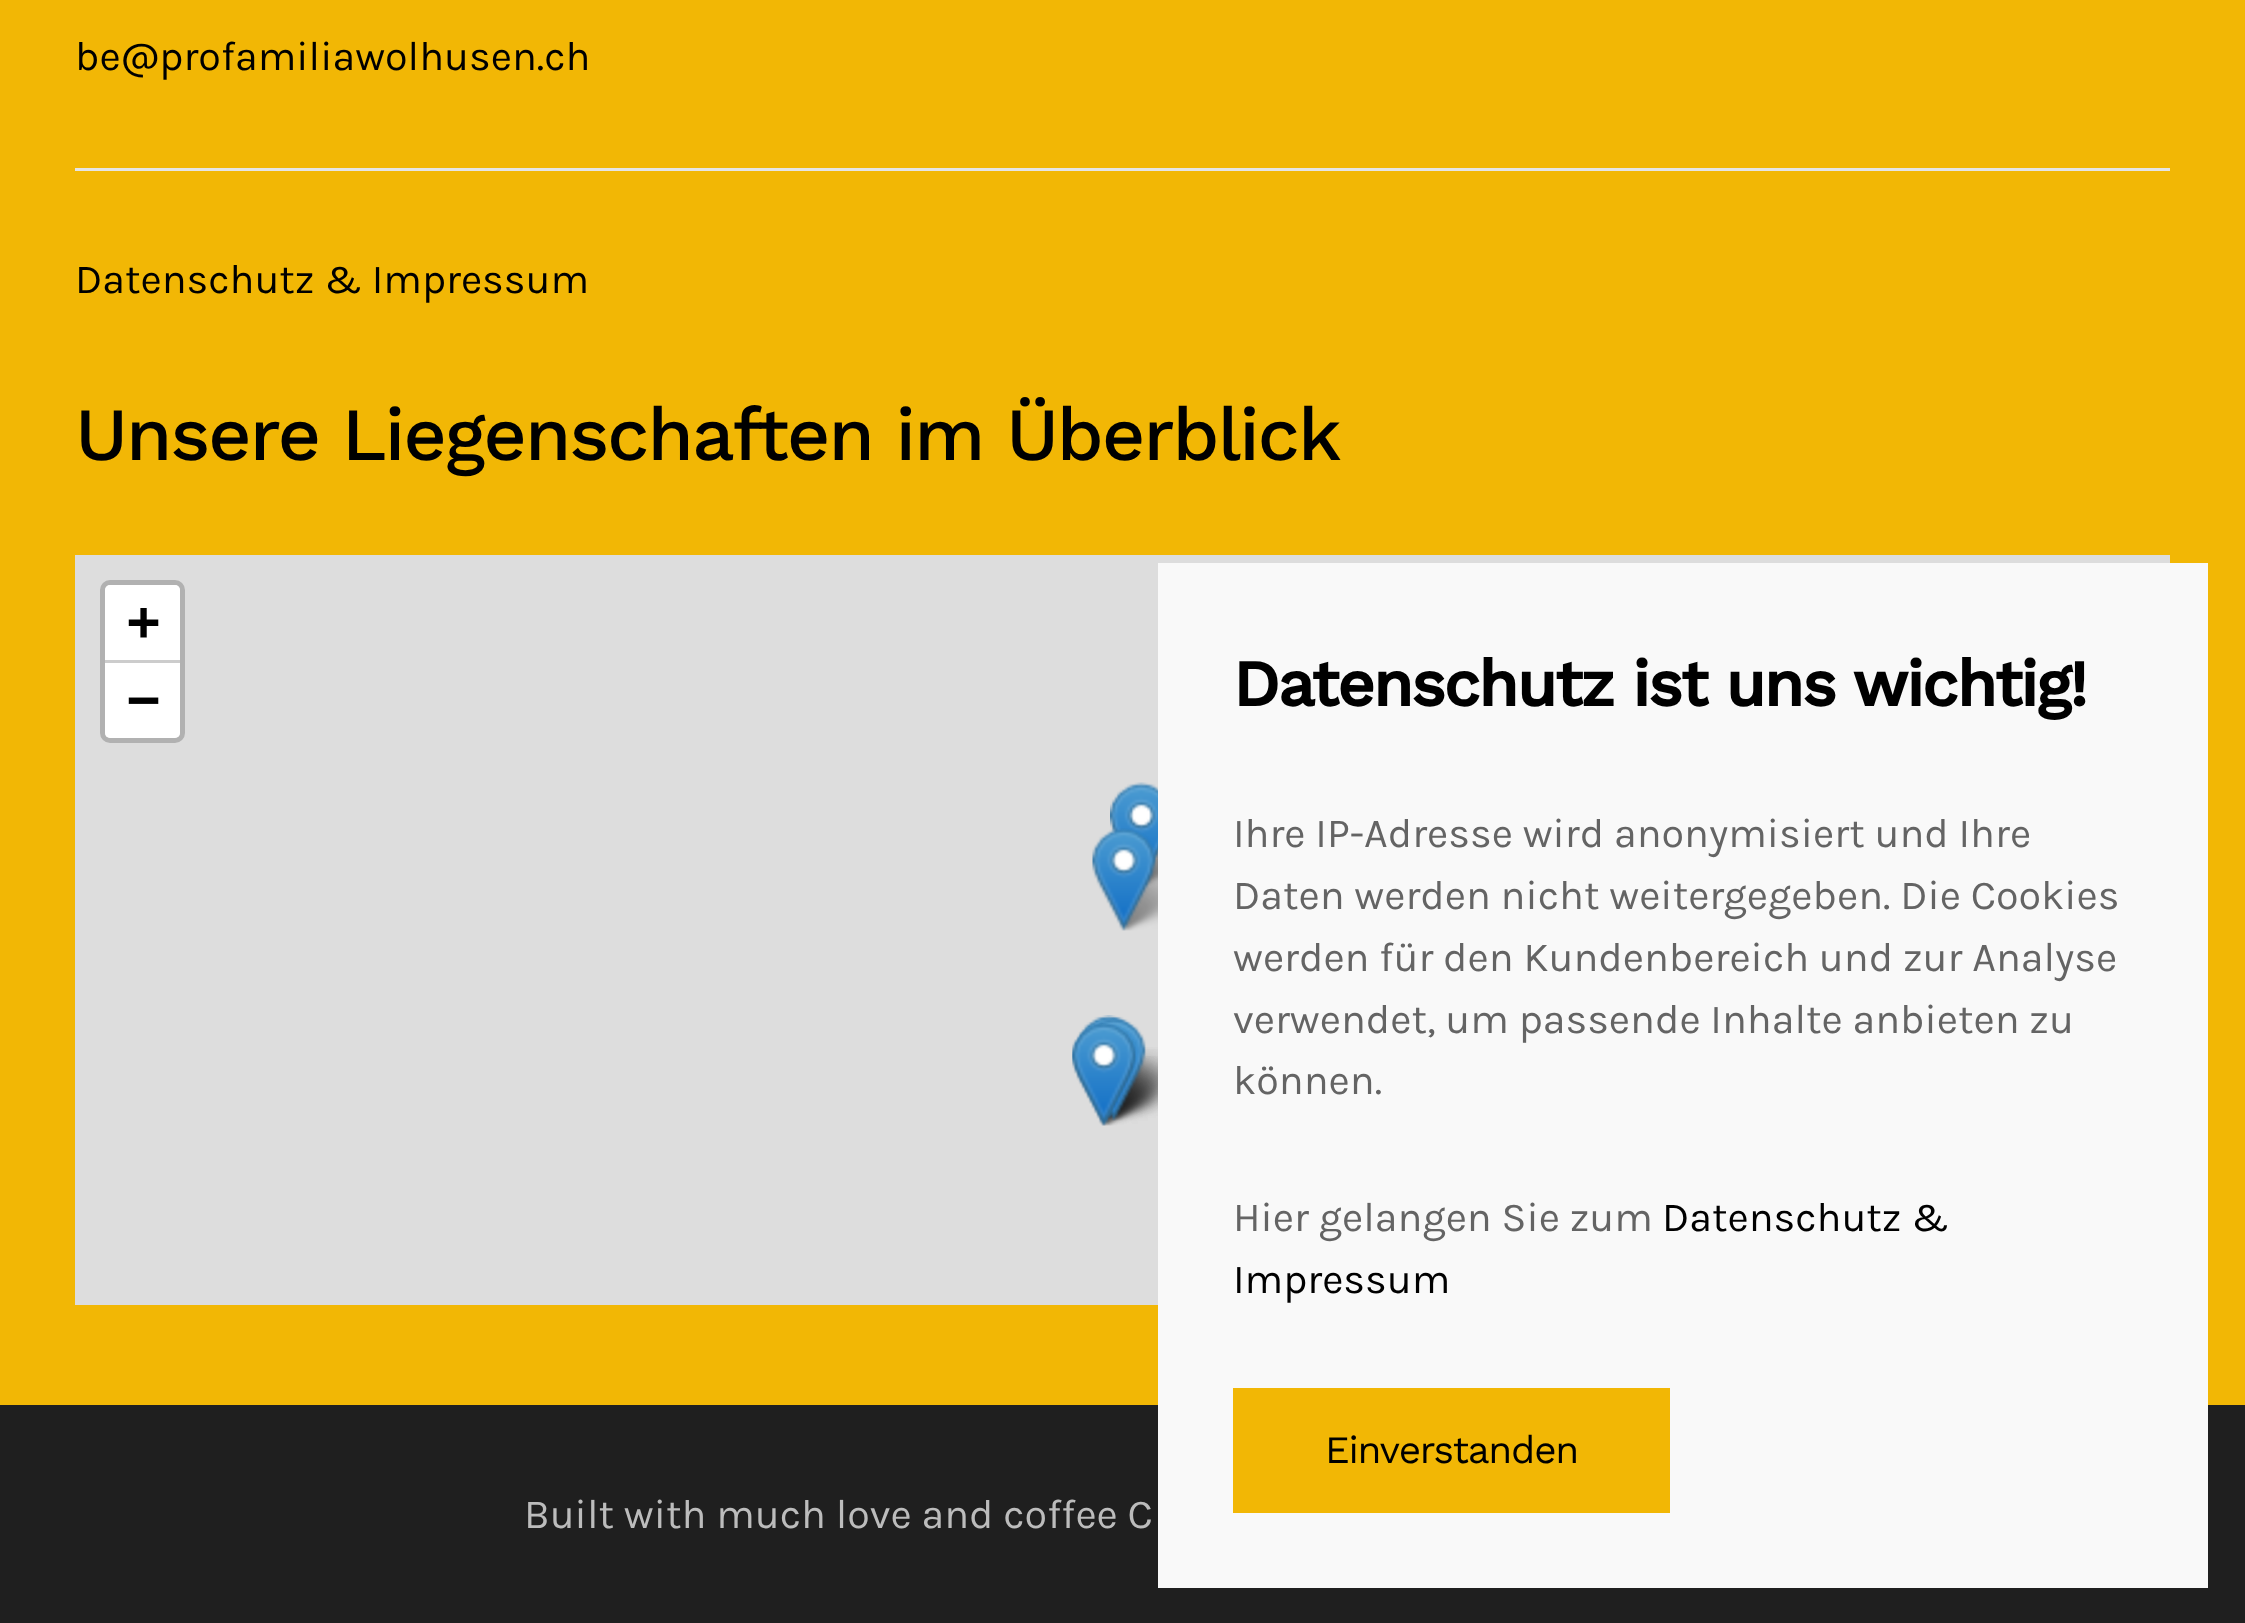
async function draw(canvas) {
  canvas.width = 2245
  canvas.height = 1623
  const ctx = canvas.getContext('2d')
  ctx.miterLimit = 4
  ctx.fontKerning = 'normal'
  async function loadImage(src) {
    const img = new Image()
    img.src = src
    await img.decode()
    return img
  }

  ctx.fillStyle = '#f2b705'
  ctx.fillRect(0, 0, 2245, 1623)
  ctx.font = '41.25px Karla'
  ctx.fillStyle = '#000'
  ctx.fillText('be@profamiliawolhusen.ch', 75, 70)
  ctx.fillStyle = '#e5e5e5'
  ctx.fillRect(75, 168, 2095, 3)
  ctx.fillStyle = '#000'
  ctx.fillText('Datenschutz & Impressum', 75, 293)
  ctx.letterSpacing = '-1.9px'
  ctx.font = '500 75px Work Sans'
  ctx.fillText('Unsere Liegenschaften im Überblick', 75, 460)
  ctx.fillStyle = '#ddd'
  ctx.fillRect(75, 555, 2095, 750)
  ctx.beginPath()
  ctx.roundRect(102.5, 582.5, 80, 158, 7.5)
  ctx.strokeStyle = '#b1b1b1'
  ctx.lineWidth = 5
  ctx.stroke()
  ctx.fillStyle = '#fff'
  ctx.beginPath()
  ctx.roundRect(105, 585, 75, 78, [5, 5, 0, 0])
  ctx.fill()
  ctx.fillStyle = '#ccc'
  ctx.fillRect(105, 660, 75, 3)
  ctx.letterSpacing = '0px'
  ctx.font = 'bold 55px DejaVu Sans Mono'
  ctx.fillStyle = '#000'
  ctx.fillText('+', 127, 640)
  ctx.fillStyle = '#fff'
  ctx.beginPath()
  ctx.roundRect(105, 663, 75, 75, [0, 0, 5, 5])
  ctx.fill()
  ctx.fillStyle = '#000'
  ctx.fillText('−', 127, 718)
  ctx.drawImage(await loadImage('image7.png'), 1115, 859, 43, 72)
  ctx.drawImage(await loadImage('image6.png'), 1142, 844, 16, 42)
  ctx.drawImage(await loadImage('image0.png'), 1110, 782, 48, 104)
  ctx.drawImage(await loadImage('image1.png'), 1092, 828, 64, 103)
  ctx.drawImage(await loadImage('image9.png'), 1108, 1049, 50, 72)
  ctx.drawImage(await loadImage('image8.png'), 1105, 1047, 53, 71)
  ctx.drawImage(await loadImage('image10.png'), 1095, 1056, 63, 70)
  ctx.drawImage(await loadImage('image11.png'), 1095, 1056, 63, 70)
  ctx.drawImage(await loadImage('image2.png'), 1077, 1015, 64, 103)
  ctx.drawImage(await loadImage('image3.png'), 1082, 1017, 64, 104)
  ctx.drawImage(await loadImage('image4.png'), 1072, 1023, 64, 103)
  ctx.drawImage(await loadImage('image5.png'), 1072, 1023, 64, 103)
  ctx.fillStyle = '#1f1f1f'
  ctx.fillRect(0, 1405, 2245, 218)
  ctx.font = '41.25px Karla'
  ctx.fillStyle = '#bcbcbc'
  ctx.fillText('Built with much love and coffee C', 524, 1528)
  ctx.fillStyle = '#f9f9f9'
  ctx.fillRect(1158, 563, 1050, 1025)
  ctx.letterSpacing = '-1.9px'
  ctx.font = 'bold 65px Work Sans'
  ctx.fillStyle = '#000'
  ctx.fillText('Datenschutz ist uns wichtig!', 1233, 706)
  ctx.letterSpacing = '0px'
  ctx.font = '41.25px Karla'
  ctx.fillStyle = '#646464'
  ctx.fillText('Ihre IP-Adresse wird anonymisiert und Ihre', 1233, 847)
  ctx.fillText('Daten werden nicht weitergegeben. Die Cookies', 1233, 909)
  ctx.fillText('werden für den Kundenbereich und zur Analyse', 1233, 971)
  ctx.fillText('verwendet, um passende Inhalte anbieten zu', 1233, 1033)
  ctx.fillText('können.', 1233, 1094)
  ctx.fillText('Hier gelangen Sie zum', 1233, 1231)
  ctx.fillStyle = '#000'
  ctx.fillText('Datenschutz &', 1662, 1231)
  ctx.fillText('Impressum', 1233, 1293)
  ctx.fillStyle = '#f2b705'
  ctx.fillRect(1233, 1388, 437, 125)
  ctx.letterSpacing = '-1.25px'
  ctx.font = '38.75px Work Sans'
  ctx.fillStyle = '#000'
  ctx.fillText('Einverstanden', 1325, 1463)
}

draw(document.querySelector('canvas'))
